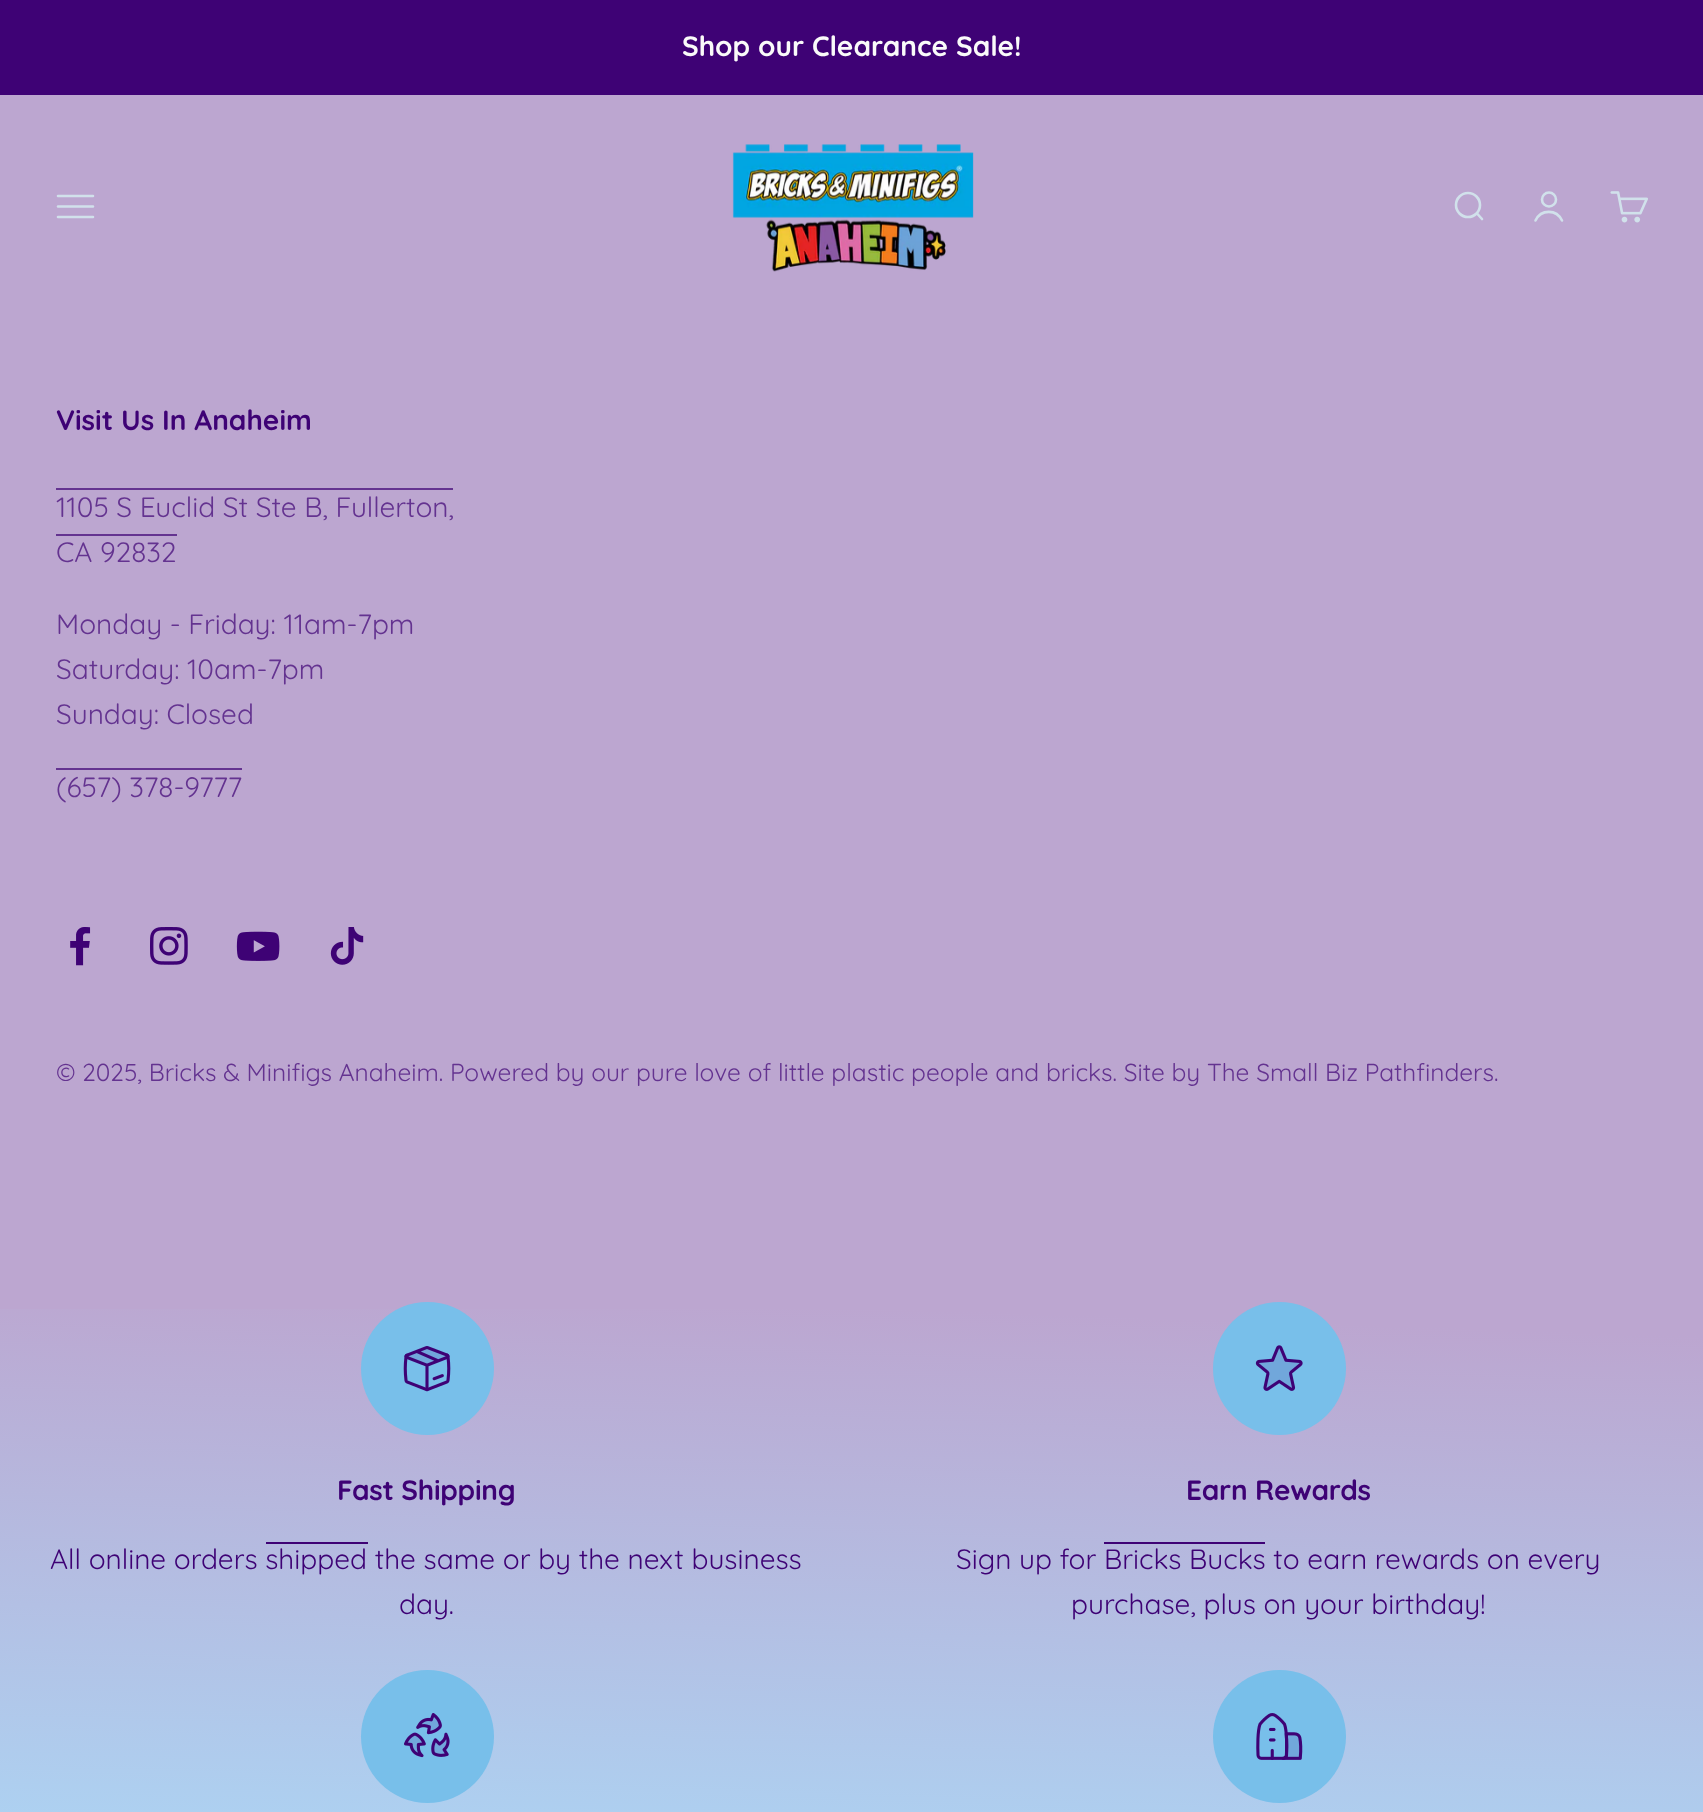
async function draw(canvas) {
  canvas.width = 1703
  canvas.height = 1812
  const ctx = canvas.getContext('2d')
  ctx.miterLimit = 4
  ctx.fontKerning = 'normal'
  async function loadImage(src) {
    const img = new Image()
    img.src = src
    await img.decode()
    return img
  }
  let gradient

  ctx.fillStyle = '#bca6d0'
  ctx.fillRect(0, 0, 1703, 1812)
  ctx.fillStyle = '#3e0275'
  ctx.fillRect(0, 0, 1703, 95)
  ctx.font = 'bold 28px Quicksand'
  ctx.fillStyle = '#fafafa'
  ctx.fillText('Shop our Clearance Sale!', 682, 56)
  ctx.beginPath()
  ctx.moveTo(58, 196)
  ctx.lineTo(93, 196)
  ctx.moveTo(58, 206.5)
  ctx.lineTo(93, 206.5)
  ctx.moveTo(58, 217)
  ctx.lineTo(93, 217)
  ctx.strokeStyle = '#d1e1eb'
  ctx.lineWidth = 2.6
  ctx.lineCap = 'round'
  ctx.stroke()
  ctx.drawImage(await loadImage('image0.png'), 732, 144, 242, 128)
  ctx.beginPath()
  ctx.arc(1468, 205, 12, 0, 2 * Math.PI)
  ctx.stroke()
  ctx.beginPath()
  ctx.moveTo(1477, 213.5)
  ctx.lineTo(1482, 219)
  ctx.lineJoin = 'round'
  ctx.stroke()
  ctx.beginPath()
  ctx.arc(1549, 199.5, 7, 0, 2 * Math.PI)
  ctx.stroke()
  ctx.beginPath()
  ctx.moveTo(1535.5, 220.5)
  ctx.bezierCurveTo(1541, 209, 1556.5, 209, 1562, 220.5)
  ctx.lineJoin = 'miter'
  ctx.stroke()
  ctx.drawImage(await loadImage('image1.png'), 1610, 191, 38, 32)
  ctx.fillStyle = '#3e0275'
  ctx.fillText('Visit Us In Anaheim', 56, 430)
  ctx.font = '28px Quicksand'
  ctx.fillStyle = '#643390'
  ctx.fillText('1105 S Euclid St Ste B, Fullerton,', 56, 517)
  ctx.fillRect(56, 488, 397, 2)
  ctx.fillText('CA 92832', 56, 562)
  ctx.fillRect(56, 534, 121, 2)
  ctx.fillText('Monday - Friday: 11am-7pm', 56, 634)
  ctx.fillText('Saturday: 10am-7pm', 56, 679)
  ctx.fillText('Sunday: Closed', 56, 724)
  ctx.fillText('(657) 378-9777', 56, 797)
  ctx.fillRect(56, 768, 186, 2)
  ctx.drawImage(await loadImage('image2.png'), 70, 927, 21, 39)
  ctx.drawImage(await loadImage('image3.png'), 150, 927, 38, 38)
  ctx.drawImage(await loadImage('image4.png'), 236, 931, 44, 30)
  ctx.drawImage(await loadImage('image5.png'), 330, 927, 34, 38)
  ctx.font = '24.5px Quicksand'
  ctx.fillText('© 2025, Bricks & Minifigs Anaheim. Powered by our pure love of little plastic people and bricks. Site by The Small Biz Pathfinders.', 56, 1081)
  gradient = ctx.createLinearGradient(869, 1175, 836, 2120)
  gradient.addColorStop(0.14, '#bca6d0')
  gradient.addColorStop(0.83, '#aadaf8')
  ctx.fillStyle = gradient
  ctx.fillRect(0, 1309, 1703, 503)
  ctx.fillStyle = '#78bfea'
  ctx.beginPath()
  ctx.arc(427.5, 1368.5, 66.5, 0, 2 * Math.PI)
  ctx.fill()
  ctx.drawImage(await loadImage('image6.png'), 403, 1346, 48, 46)
  ctx.letterSpacing = '-0.25px'
  ctx.font = 'bold 28px Quicksand'
  ctx.fillStyle = '#3e0275'
  ctx.fillText('Fast Shipping', 337, 1500)
  ctx.fillRect(266, 1542, 102, 2)
  ctx.letterSpacing = '0px'
  ctx.font = '28px Quicksand'
  ctx.fillText('All online orders shipped the same or by the next business', 50, 1569)
  ctx.fillText('day.', 399, 1614)
  ctx.fillStyle = '#78bfea'
  ctx.beginPath()
  ctx.arc(1279.5, 1368.5, 66.5, 0, 2 * Math.PI)
  ctx.fill()
  ctx.drawImage(await loadImage('image7.png'), 1255, 1345, 48, 46)
  ctx.letterSpacing = '-0.25px'
  ctx.font = 'bold 28px Quicksand'
  ctx.fillStyle = '#3e0275'
  ctx.fillText('Earn Rewards', 1186, 1500)
  ctx.fillRect(1104, 1542, 161, 2)
  ctx.letterSpacing = '0px'
  ctx.font = '28px Quicksand'
  ctx.fillText('Sign up for Bricks Bucks to earn rewards on every', 956, 1569)
  ctx.fillText('purchase, plus on your birthday!', 1071, 1614)
  ctx.fillStyle = '#78bfea'
  ctx.beginPath()
  ctx.arc(427.5, 1736.5, 66.5, 0, 2 * Math.PI)
  ctx.fill()
  ctx.drawImage(await loadImage('image8.png'), 404, 1713, 46, 45)
  ctx.beginPath()
  ctx.arc(1279.5, 1736.5, 66.5, 0, 2 * Math.PI)
  ctx.fill()
  ctx.drawImage(await loadImage('image9.png'), 1256, 1713, 47, 47)
}

draw(document.querySelector('canvas'))
